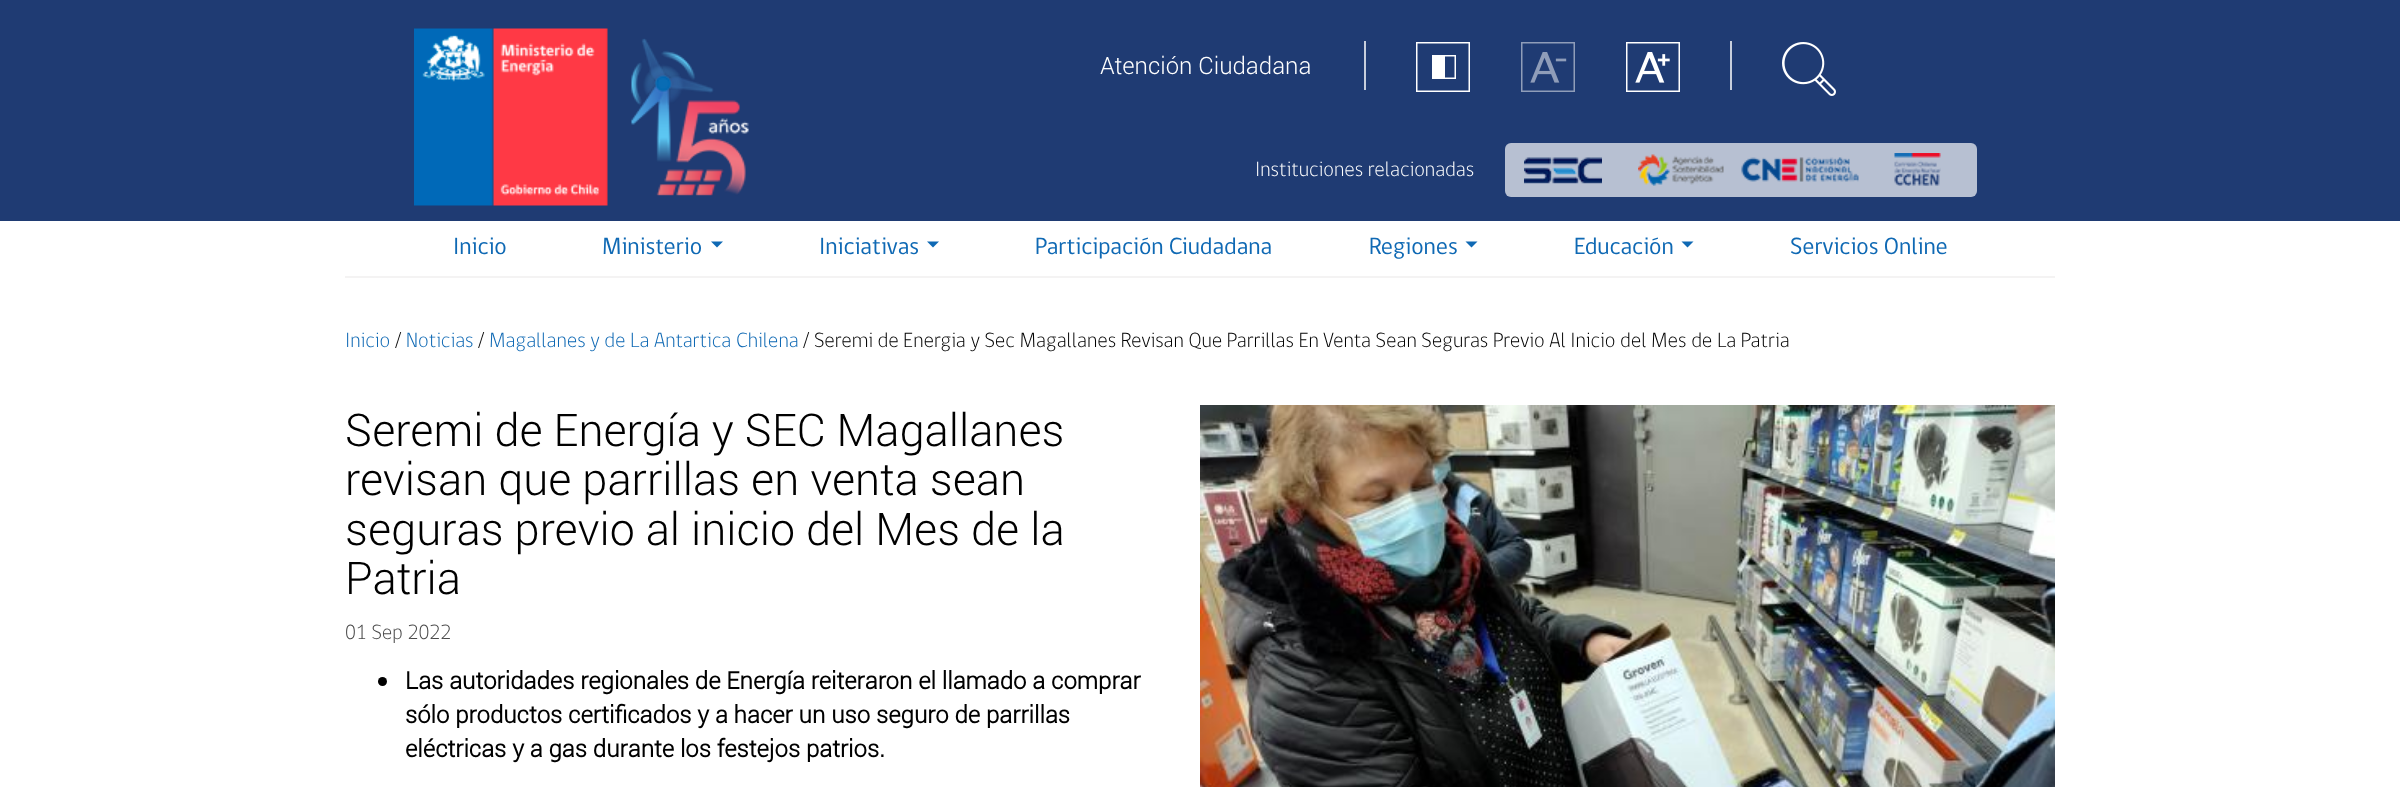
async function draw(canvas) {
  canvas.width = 2400
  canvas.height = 787
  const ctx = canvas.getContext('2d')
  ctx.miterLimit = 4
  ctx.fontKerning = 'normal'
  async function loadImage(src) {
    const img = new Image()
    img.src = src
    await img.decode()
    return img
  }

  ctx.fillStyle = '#fff'
  ctx.fillRect(0, 0, 2400, 787)
  ctx.fillStyle = '#1f3b73'
  ctx.fillRect(0, 0, 2400, 221)
  ctx.drawImage(await loadImage('image0.png'), 414, 28, 335, 178)
  ctx.font = '300 24px Roboto'
  ctx.fillStyle = '#fff'
  ctx.fillText('Atención Ciudadana', 1100, 74)
  ctx.fillStyle = '#c7cedc'
  ctx.fillRect(1364, 41, 2, 49)
  ctx.strokeStyle = '#fff'
  ctx.lineWidth = 1.5
  ctx.strokeRect(1416.75, 42.75, 52.5, 48.5)
  ctx.strokeRect(1432.75, 55.75, 22.5, 22.5)
  ctx.fillStyle = '#fff'
  ctx.fillRect(1433, 56, 12, 22)
  ctx.drawImage(await loadImage('image1.png'), 1521, 42, 54, 50)
  ctx.drawImage(await loadImage('image2.png'), 1626, 42, 54, 50)
  ctx.fillStyle = '#c7cedc'
  ctx.fillRect(1730, 41, 2, 49)
  ctx.drawImage(await loadImage('image3.png'), 1782, 42, 54, 54)
  ctx.font = '300 21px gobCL'
  ctx.fillStyle = '#fff'
  ctx.fillText('Instituciones relacionadas', 1255, 176)
  ctx.fillStyle = '#b7c0d2'
  ctx.beginPath()
  ctx.roundRect(1505, 143, 472, 54, 6)
  ctx.fill()
  ctx.drawImage(await loadImage('image4.png'), 1524, 157, 78, 27)
  ctx.drawImage(await loadImage('image5.png'), 1638, 154, 86, 32)
  ctx.drawImage(await loadImage('image6.png'), 1741, 157, 118, 25)
  ctx.drawImage(await loadImage('image7.png'), 1894, 153, 47, 33)
  ctx.fillStyle = '#f4f3f3'
  ctx.fillRect(345, 276, 1710, 2)
  ctx.font = '24px gobCL'
  ctx.fillStyle = '#0f69b4'
  ctx.fillText('Inicio', 453, 254)
  ctx.fillText('Ministerio', 602, 254)
  ctx.beginPath()
  ctx.moveTo(711, 241.5)
  ctx.lineTo(723, 241.5)
  ctx.lineTo(717, 247.5)
  ctx.closePath()
  ctx.fill()
  ctx.fillText('Iniciativas', 819, 254)
  ctx.beginPath()
  ctx.moveTo(927, 241.5)
  ctx.lineTo(939, 241.5)
  ctx.lineTo(933, 247.5)
  ctx.closePath()
  ctx.fill()
  ctx.fillText('Participación Ciudadana', 1035, 254)
  ctx.fillText('Regiones', 1369, 254)
  ctx.beginPath()
  ctx.moveTo(1465.5, 241.5)
  ctx.lineTo(1477.5, 241.5)
  ctx.lineTo(1471.5, 247.5)
  ctx.closePath()
  ctx.fill()
  ctx.fillText('Educación', 1574, 254)
  ctx.beginPath()
  ctx.moveTo(1681.5, 241.5)
  ctx.lineTo(1693.5, 241.5)
  ctx.lineTo(1687.5, 247.5)
  ctx.closePath()
  ctx.fill()
  ctx.fillText('Servicios Online', 1790, 254)
  ctx.font = '300 21px gobCL'
  ctx.fillText('Inicio', 345, 347)
  ctx.fillStyle = '#000'
  ctx.fillText('/', 395, 347)
  ctx.fillStyle = '#0f69b4'
  ctx.fillText('Noticias', 406, 347)
  ctx.fillStyle = '#000'
  ctx.fillText('/', 478, 347)
  ctx.fillStyle = '#0f69b4'
  ctx.fillText('Magallanes y de La Antartica Chilena', 489, 347)
  ctx.fillStyle = '#000'
  ctx.fillText('/ Seremi de Energia y Sec Magallanes Revisan Que Parrillas En Venta Sean Seguras Previo Al Inicio del Mes de La Patria', 803, 347)
  ctx.font = '300 45px Roboto'
  ctx.fillText('Seremi de Energía y SEC Magallanes', 345, 446)
  ctx.fillText('revisan que parrillas en venta sean', 345, 495)
  ctx.fillText('seguras previo al inicio del Mes de la', 345, 545)
  ctx.fillText('Patria', 345, 594)
  ctx.drawImage(await loadImage('image8.png'), 1200, 405, 855, 382)
  ctx.font = '300 21px gobCL'
  ctx.fillStyle = '#4a4a4a'
  ctx.fillText('01 Sep 2022', 345, 639)
  ctx.fillStyle = '#000'
  ctx.beginPath()
  ctx.arc(382.5, 681.5, 4.5, 0, 2 * Math.PI)
  ctx.fill()
  ctx.font = 'bold 24px Roboto'
  ctx.fillText('Las autoridades regionales de Energía reiteraron el llamado a comprar', 405, 689)
  ctx.fillText('sólo productos certificados y a hacer un uso seguro de parrillas', 405, 723)
  ctx.fillText('eléctricas y a gas durante los festejos patrios.', 405, 757)
}

draw(document.querySelector('canvas'))
